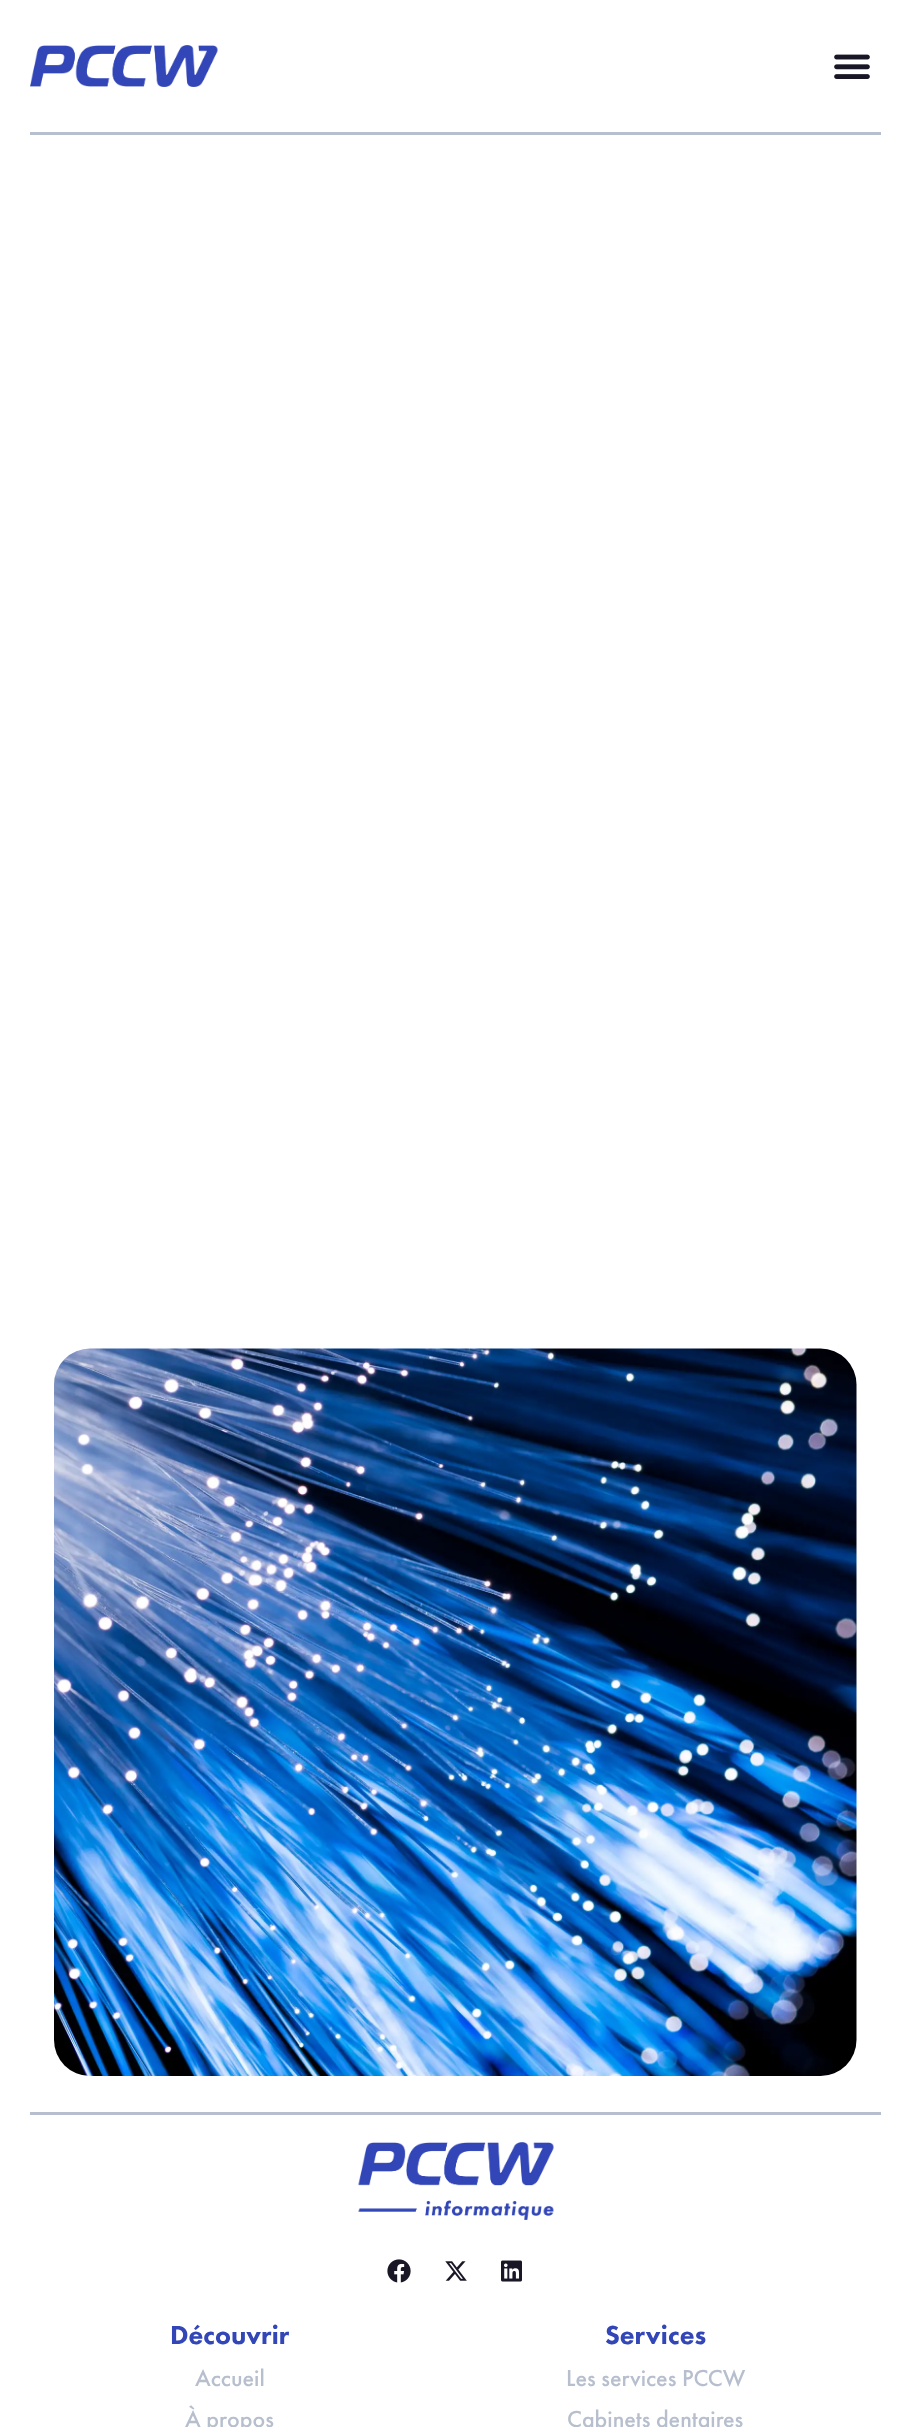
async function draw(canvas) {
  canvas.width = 910
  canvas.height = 2427
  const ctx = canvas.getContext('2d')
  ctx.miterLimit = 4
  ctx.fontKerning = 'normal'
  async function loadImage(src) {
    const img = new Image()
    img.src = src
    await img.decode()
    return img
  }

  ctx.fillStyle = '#fff'
  ctx.fillRect(0, 0, 910, 2427)
  ctx.fillStyle = '#b7bfce'
  ctx.fillRect(30, 132, 851, 3)
  ctx.drawImage(await loadImage('image0.png'), 30, 45, 188, 42)
  ctx.drawImage(await loadImage('image1.png'), 834, 54, 36, 25)
  ctx.drawImage(await loadImage('image2.png'), 54, 1348, 803, 728)
  ctx.fillRect(30, 2112, 851, 3)
  ctx.drawImage(await loadImage('image3.png'), 358, 2142, 196, 78)
  ctx.drawImage(await loadImage('image4.png'), 387, 2259, 24, 24)
  ctx.drawImage(await loadImage('image5.png'), 445, 2261, 22, 20)
  ctx.drawImage(await loadImage('image6.png'), 501, 2260, 21, 22)
  ctx.font = '900 27px Futura PT'
  ctx.fillStyle = '#3246b8'
  ctx.fillText('Découvrir', 170, 2344)
  ctx.font = '500 24px Futura PT'
  ctx.fillStyle = '#b7bfce'
  ctx.fillText('Accueil', 195, 2386)
  ctx.fillText('À propos', 185, 2427)
  ctx.font = '900 27px Futura PT'
  ctx.fillStyle = '#3246b8'
  ctx.fillText('Services', 605, 2344)
  ctx.font = '500 24px Futura PT'
  ctx.fillStyle = '#b7bfce'
  ctx.fillText('Les services PCCW', 566, 2386)
  ctx.fillText('Cabinets dentaires', 567, 2427)
}

draw(document.querySelector('canvas'))
